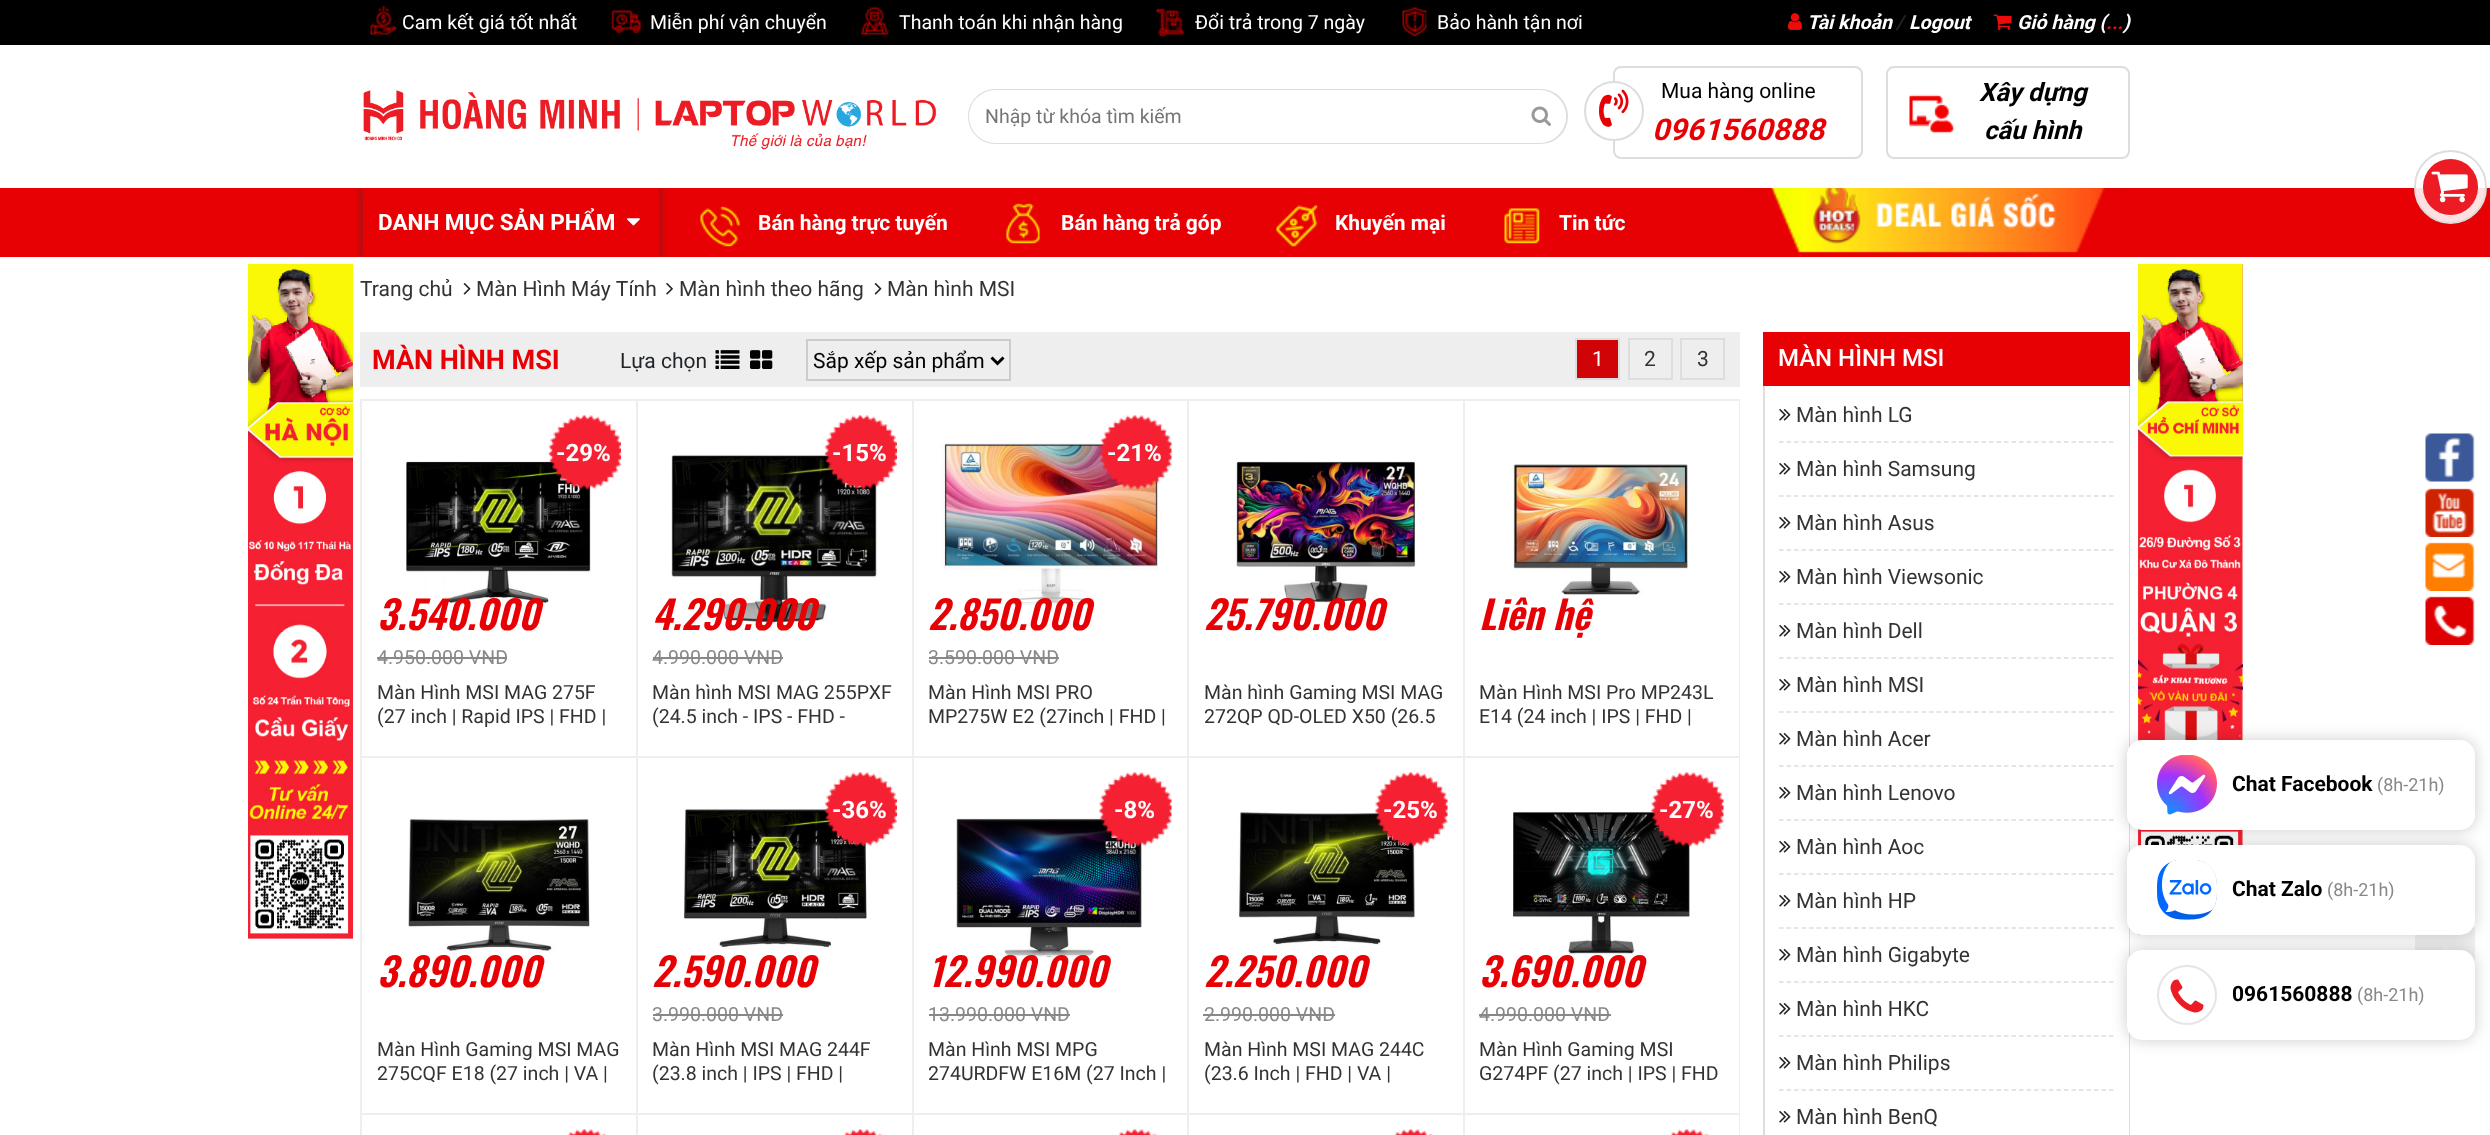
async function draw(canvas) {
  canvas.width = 2490
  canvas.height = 1135
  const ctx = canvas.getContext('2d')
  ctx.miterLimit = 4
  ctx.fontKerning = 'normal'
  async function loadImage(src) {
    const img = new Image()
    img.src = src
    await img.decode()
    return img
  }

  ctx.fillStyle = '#fff'
  ctx.fillRect(0, 0, 2490, 1135)
  ctx.fillStyle = '#000'
  ctx.fillRect(0, 0, 2490, 45)
  ctx.drawImage(await loadImage('image0.png'), 370, 5, 27, 30)
  ctx.font = '19.5px Roboto'
  ctx.fillStyle = '#fff'
  ctx.fillText('Cam kết giá tốt nhất', 402, 29)
  ctx.drawImage(await loadImage('image1.png'), 611, 10, 30, 24)
  ctx.fillText('Miễn phí vận chuyển', 650, 29)
  ctx.drawImage(await loadImage('image2.png'), 860, 7, 29, 28)
  ctx.fillText('Thanh toán khi nhận hàng', 899, 29)
  ctx.drawImage(await loadImage('image3.png'), 1156, 8, 28, 29)
  ctx.fillText('Đổi trả trong 7 ngày', 1195, 29)
  ctx.drawImage(await loadImage('image4.png'), 1402, 7, 25, 30)
  ctx.fillText('Bảo hành tận nơi', 1437, 29)
  ctx.drawImage(await loadImage('image5.png'), 1788, 13, 14, 17)
  ctx.font = 'italic bold 19.5px Roboto'
  ctx.fillText('Tài khoản', 1807, 29)
  ctx.fillStyle = '#212529'
  ctx.fillText('/', 1896, 29)
  ctx.fillStyle = '#fff'
  ctx.fillText('Logout', 1909, 29)
  ctx.drawImage(await loadImage('image6.png'), 1993, 14, 19, 16)
  ctx.fillText('Giỏ hàng (', 2017, 29)
  ctx.fillStyle = '#ee0b0b'
  ctx.fillText('...', 2106, 29)
  ctx.fillStyle = '#fff'
  ctx.fillText(')', 2123, 29)
  ctx.drawImage(await loadImage('image7.png'), 363, 90, 574, 60)
  ctx.beginPath()
  ctx.roundRect(969, 90, 598, 53, 26.5)
  ctx.strokeStyle = '#ddd'
  ctx.lineWidth = 2
  ctx.stroke()
  ctx.beginPath()
  ctx.roundRect(969, 90, 597, 53, 26.5)
  ctx.fill()
  ctx.font = '19.5px Roboto'
  ctx.fillStyle = '#757575'
  ctx.fillText('Nhập từ khóa tìm kiếm', 985, 123)
  ctx.drawImage(await loadImage('image8.png'), 1531, 106, 20, 20)
  ctx.beginPath()
  ctx.roundRect(1614, 67, 248, 91, 7)
  ctx.stroke()
  ctx.fillStyle = '#fff'
  ctx.beginPath()
  ctx.arc(1614, 111, 29, 0, 2 * Math.PI)
  ctx.fill()
  ctx.stroke()
  ctx.drawImage(await loadImage('image9.png'), 1599, 89, 30, 38)
  ctx.font = '21px Roboto'
  ctx.fillStyle = '#000'
  ctx.fillText('Mua hàng online', 1661, 98)
  ctx.font = 'italic bold 30px Roboto'
  ctx.fillStyle = '#e80104'
  ctx.fillText('0961560888', 1652, 140)
  ctx.beginPath()
  ctx.roundRect(1887, 67, 242, 91, 7)
  ctx.stroke()
  ctx.drawImage(await loadImage('image10.png'), 1909, 94, 46, 40)
  ctx.font = 'italic bold 25.5px Roboto'
  ctx.fillStyle = '#000'
  ctx.fillText('Xây dựng', 1979, 101)
  ctx.fillText('cấu hình', 1984, 139)
  ctx.fillStyle = '#e80104'
  ctx.fillRect(0, 188, 2490, 69)
  ctx.save()
  ctx.beginPath()
  ctx.rect(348, 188, 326, 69)
  ctx.clip()
  ctx.beginPath()
  ctx.moveTo(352, 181)
  ctx.lineTo(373, 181)
  ctx.lineTo(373, 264)
  ctx.lineTo(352, 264)
  ctx.closePath()
  ctx.moveTo(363, 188)
  ctx.lineTo(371, 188)
  ctx.lineTo(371, 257)
  ctx.lineTo(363, 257)
  ctx.closePath()
  ctx.clip('evenodd')
  ctx.fillStyle = '#b30e10'
  ctx.filter = 'blur(2px)'
  ctx.beginPath()
  ctx.rect(359, 188, 7, 69)
  ctx.fill()
  ctx.filter = 'none'
  ctx.restore()
  ctx.font = 'bold 22.5px Roboto'
  ctx.fillStyle = '#fff'
  ctx.fillText('DANH MỤC SẢN PHẨM', 378, 230)
  ctx.drawImage(await loadImage('image11.png'), 627, 218, 13, 8)
  ctx.save()
  ctx.beginPath()
  ctx.rect(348, 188, 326, 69)
  ctx.clip()
  ctx.beginPath()
  ctx.moveTo(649, 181)
  ctx.lineTo(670, 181)
  ctx.lineTo(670, 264)
  ctx.lineTo(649, 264)
  ctx.closePath()
  ctx.moveTo(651, 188)
  ctx.lineTo(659, 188)
  ctx.lineTo(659, 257)
  ctx.lineTo(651, 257)
  ctx.closePath()
  ctx.clip('evenodd')
  ctx.fillStyle = '#b30e10'
  ctx.filter = 'blur(2px)'
  ctx.beginPath()
  ctx.rect(656, 188, 7, 69)
  ctx.fill()
  ctx.filter = 'none'
  ctx.restore()
  ctx.drawImage(await loadImage('image12.png'), 700, 206, 40, 41)
  ctx.font = 'bold 21px Roboto'
  ctx.fillText('Bán hàng trực tuyến', 758, 230)
  ctx.drawImage(await loadImage('image13.png'), 1006, 203, 34, 41)
  ctx.fillText('Bán hàng trả góp', 1061, 230)
  ctx.drawImage(await loadImage('image14.png'), 1276, 205, 42, 42)
  ctx.fillText('Khuyến mại', 1335, 230)
  ctx.drawImage(await loadImage('image15.png'), 1504, 208, 36, 36)
  ctx.fillText('Tin tức', 1559, 230)
  ctx.drawImage(await loadImage('image16.png'), 1749, 188, 378, 65)
  ctx.fillStyle = '#ffffffe0'
  ctx.beginPath()
  ctx.roundRect(2415, 151, 71, 72, 35.5)
  ctx.fill()
  ctx.stroke()
  ctx.fillStyle = '#ed1b24'
  ctx.beginPath()
  ctx.roundRect(2423, 159, 55, 56, 27.5)
  ctx.fill()
  ctx.drawImage(await loadImage('image17.png'), 2431, 171, 37, 32)
  ctx.drawImage(await loadImage('image18.png'), 248, 264, 105, 675)
  ctx.drawImage(await loadImage('image19.png'), 2138, 264, 105, 671)
  ctx.font = '21px Roboto'
  ctx.fillStyle = '#333'
  ctx.fillText('Trang chủ', 360, 296)
  ctx.drawImage(await loadImage('image20.png'), 463, 283, 8, 12)
  ctx.fillText('Màn Hình Máy Tính', 476, 296)
  ctx.drawImage(await loadImage('image21.png'), 666, 283, 7, 12)
  ctx.fillText('Màn hình theo hãng', 679, 296)
  ctx.drawImage(await loadImage('image20.png'), 874, 283, 8, 12)
  ctx.fillText('Màn hình MSI', 887, 296)
  ctx.fillStyle = '#eee'
  ctx.fillRect(360, 332, 1380, 55)
  ctx.font = 'bold 27px Roboto'
  ctx.fillStyle = '#e80104'
  ctx.fillText('MÀN HÌNH MSI', 372, 369)
  ctx.font = '21px Roboto'
  ctx.fillStyle = '#212529'
  ctx.fillText('Lựa chọn', 620, 368)
  ctx.drawImage(await loadImage('image22.png'), 715, 350, 25, 19)
  ctx.drawImage(await loadImage('image23.png'), 750, 350, 23, 19)
  ctx.strokeStyle = '#ccc'
  ctx.strokeRect(807, 340, 203, 40)
  ctx.beginPath()
  ctx.moveTo(991.5, 357.5)
  ctx.lineTo(997.5, 363.5)
  ctx.lineTo(1003.5, 357.5)
  ctx.strokeStyle = '#000'
  ctx.lineWidth = 3
  ctx.stroke()
  ctx.fillStyle = '#000'
  ctx.fillText('Sắp xếp sản phẩm', 813, 368)
  ctx.fillStyle = '#d00306'
  ctx.beginPath()
  ctx.rect(1576, 339, 43, 40)
  ctx.fill()
  ctx.strokeStyle = '#ddd'
  ctx.lineWidth = 2
  ctx.stroke()
  ctx.fillStyle = '#fff'
  ctx.fillText('1', 1592, 366)
  ctx.strokeRect(1629, 339, 43, 40)
  ctx.fillStyle = '#333'
  ctx.fillText('2', 1644, 366)
  ctx.strokeRect(1681, 339, 43, 40)
  ctx.fillText('3', 1697, 366)
  ctx.fillStyle = '#eee'
  ctx.fillRect(360, 399, 1380, 2)
  ctx.fillRect(360, 399, 2, 736)
  ctx.fillRect(636, 401, 2, 734)
  ctx.fillRect(362, 756, 276, 2)
  ctx.drawImage(await loadImage('image25.png'), 406, 461, 185, 142)
  ctx.drawImage(await loadImage('image24.png'), 548, 415, 73, 75)
  ctx.font = 'bold 24px Roboto'
  ctx.fillStyle = '#fff'
  ctx.fillText('-29%', 556, 461)
  ctx.font = 'italic 600 39px Oswald'
  ctx.fillStyle = '#e80104'
  ctx.fillText('3.540.000', 377, 630)
  ctx.font = '19.5px Roboto'
  ctx.fillStyle = '#888'
  ctx.fillText('4.950.000 VND', 377, 664)
  ctx.fillRect(377, 657, 130, 2)
  ctx.fillStyle = '#333'
  ctx.fillText('Màn Hình MSI MAG 275F', 377, 699)
  ctx.fillText('(27 inch | Rapid IPS | FHD |', 377, 723)
  ctx.fillStyle = '#eee'
  ctx.fillRect(912, 401, 2, 734)
  ctx.fillRect(638, 756, 276, 2)
  ctx.drawImage(await loadImage('image27.png'), 671, 454, 207, 169)
  ctx.drawImage(await loadImage('image26.png'), 824, 415, 73, 75)
  ctx.font = 'bold 24px Roboto'
  ctx.fillStyle = '#fff'
  ctx.fillText('-15%', 832, 461)
  ctx.font = 'italic 600 39px Oswald'
  ctx.fillStyle = '#e80104'
  ctx.fillText('4.290.000', 652, 630)
  ctx.font = '19.5px Roboto'
  ctx.fillStyle = '#888'
  ctx.fillText('4.990.000 VND', 652, 664)
  ctx.fillRect(653, 657, 130, 2)
  ctx.fillStyle = '#333'
  ctx.fillText('Màn hình MSI MAG 255PXF', 652, 699)
  ctx.fillText('(24.5 inch - IPS - FHD -', 652, 723)
  ctx.fillStyle = '#eee'
  ctx.fillRect(1187, 401, 2, 734)
  ctx.fillRect(914, 756, 274, 2)
  ctx.drawImage(await loadImage('image28.png'), 940, 443, 219, 163)
  ctx.drawImage(await loadImage('image29.png'), 1099, 415, 73, 75)
  ctx.font = 'bold 24px Roboto'
  ctx.fillStyle = '#fff'
  ctx.fillText('-21%', 1107, 461)
  ctx.font = 'italic 600 39px Oswald'
  ctx.fillStyle = '#e80104'
  ctx.fillText('2.850.000', 928, 630)
  ctx.font = '19.5px Roboto'
  ctx.fillStyle = '#888'
  ctx.fillText('3.590.000 VND', 928, 664)
  ctx.fillRect(929, 657, 130, 2)
  ctx.fillStyle = '#333'
  ctx.fillText('Màn Hình MSI PRO', 928, 699)
  ctx.fillText('MP275W E2 (27inch | FHD |', 928, 723)
  ctx.fillStyle = '#eee'
  ctx.fillRect(1463, 401, 2, 734)
  ctx.fillRect(1188, 756, 276, 2)
  ctx.drawImage(await loadImage('image30.png'), 1236, 461, 180, 142)
  ctx.font = 'italic 600 39px Oswald'
  ctx.fillStyle = '#e80104'
  ctx.fillText('25.790.000', 1204, 630)
  ctx.font = '19.5px Roboto'
  ctx.fillStyle = '#333'
  ctx.fillText('Màn hình Gaming MSI MAG', 1204, 699)
  ctx.fillText('272QP QD-OLED X50 (26.5', 1204, 723)
  ctx.fillStyle = '#eee'
  ctx.fillRect(1739, 401, 1, 734)
  ctx.fillRect(1464, 756, 276, 2)
  ctx.drawImage(await loadImage('image31.png'), 1513, 464, 175, 131)
  ctx.font = 'italic 600 39px Oswald'
  ctx.fillStyle = '#e80104'
  ctx.fillText('Liên hệ', 1479, 630)
  ctx.font = '19.5px Roboto'
  ctx.fillStyle = '#333'
  ctx.fillText('Màn Hình MSI Pro MP243L', 1479, 699)
  ctx.fillText('E14 (24 inch | IPS | FHD |', 1479, 723)
  ctx.fillStyle = '#eee'
  ctx.fillRect(362, 1113, 1378, 2)
  ctx.drawImage(await loadImage('image32.png'), 408, 818, 182, 134)
  ctx.font = 'italic 600 39px Oswald'
  ctx.fillStyle = '#e80104'
  ctx.fillText('3.890.000', 377, 987)
  ctx.font = '19.5px Roboto'
  ctx.fillStyle = '#333'
  ctx.fillText('Màn Hình Gaming MSI MAG', 377, 1056)
  ctx.fillText('275CQF E18 (27 inch | VA |', 377, 1080)
  ctx.drawImage(await loadImage('image34.png'), 683, 808, 184, 141)
  ctx.drawImage(await loadImage('image33.png'), 824, 772, 73, 75)
  ctx.font = 'bold 24px Roboto'
  ctx.fillStyle = '#fff'
  ctx.fillText('-36%', 832, 818)
  ctx.font = 'italic 600 39px Oswald'
  ctx.fillStyle = '#e80104'
  ctx.fillText('2.590.000', 652, 987)
  ctx.font = '19.5px Roboto'
  ctx.fillStyle = '#888'
  ctx.fillText('3.990.000 VND', 652, 1021)
  ctx.fillRect(653, 1014, 130, 2)
  ctx.fillStyle = '#333'
  ctx.fillText('Màn Hình MSI MAG 244F', 652, 1056)
  ctx.fillText('(23.8 inch | IPS | FHD |', 652, 1080)
  ctx.drawImage(await loadImage('image36.png'), 956, 818, 186, 140)
  ctx.drawImage(await loadImage('image35.png'), 1099, 772, 73, 75)
  ctx.font = 'bold 24px Roboto'
  ctx.fillStyle = '#fff'
  ctx.fillText('-8%', 1114, 818)
  ctx.font = 'italic 600 39px Oswald'
  ctx.fillStyle = '#e80104'
  ctx.fillText('12.990.000', 928, 987)
  ctx.font = '19.5px Roboto'
  ctx.fillStyle = '#888'
  ctx.fillText('13.990.000 VND', 928, 1021)
  ctx.fillRect(929, 1014, 141, 2)
  ctx.fillStyle = '#333'
  ctx.fillText('Màn Hình MSI MPG', 928, 1056)
  ctx.fillText('274URDFW E16M (27 Inch |', 928, 1080)
  ctx.drawImage(await loadImage('image38.png'), 1238, 812, 177, 133)
  ctx.drawImage(await loadImage('image37.png'), 1375, 772, 73, 75)
  ctx.font = 'bold 24px Roboto'
  ctx.fillStyle = '#fff'
  ctx.fillText('-25%', 1383, 818)
  ctx.font = 'italic 600 39px Oswald'
  ctx.fillStyle = '#e80104'
  ctx.fillText('2.250.000', 1204, 987)
  ctx.font = '19.5px Roboto'
  ctx.fillStyle = '#888'
  ctx.fillText('2.990.000 VND', 1204, 1021)
  ctx.fillRect(1203, 1014, 132, 2)
  ctx.fillStyle = '#333'
  ctx.fillText('Màn Hình MSI MAG 244C', 1204, 1056)
  ctx.fillText('(23.6 Inch | FHD | VA |', 1204, 1080)
  ctx.drawImage(await loadImage('image40.png'), 1513, 812, 177, 143)
  ctx.drawImage(await loadImage('image39.png'), 1651, 772, 73, 75)
  ctx.font = 'bold 24px Roboto'
  ctx.fillStyle = '#fff'
  ctx.fillText('-27%', 1659, 818)
  ctx.font = 'italic 600 39px Oswald'
  ctx.fillStyle = '#e80104'
  ctx.fillText('3.690.000', 1479, 987)
  ctx.font = '19.5px Roboto'
  ctx.fillStyle = '#888'
  ctx.fillText('4.990.000 VND', 1479, 1021)
  ctx.fillRect(1479, 1014, 132, 2)
  ctx.fillStyle = '#333'
  ctx.fillText('Màn Hình Gaming MSI', 1479, 1056)
  ctx.fillText('G274PF (27 inch | IPS | FHD', 1479, 1080)
  ctx.drawImage(await loadImage('image41.png'), 568, 1129, 39, 6)
  ctx.drawImage(await loadImage('image41.png'), 844, 1129, 39, 6)
  ctx.drawImage(await loadImage('image42.png'), 1118, 1129, 39, 6)
  ctx.drawImage(await loadImage('image43.png'), 1394, 1129, 39, 6)
  ctx.drawImage(await loadImage('image42.png'), 1670, 1129, 39, 6)
  ctx.fillStyle = '#e80104'
  ctx.fillRect(1763, 332, 367, 54)
  ctx.font = '500 24px Roboto'
  ctx.fillStyle = '#fff'
  ctx.fillText('MÀN HÌNH MSI', 1778, 366)
  ctx.fillStyle = '#ddd'
  ctx.fillRect(2129, 386, 1, 749)
  ctx.fillRect(1763, 386, 2, 749)
  ctx.beginPath()
  ctx.moveTo(1779, 442)
  ctx.lineTo(2113.5, 442)
  ctx.lineWidth = 1.5
  ctx.setLineDash([4.5, 3])
  ctx.stroke()
  ctx.drawImage(await loadImage('image44.png'), 1779, 409, 12, 12)
  ctx.font = '21px Roboto'
  ctx.fillStyle = '#333'
  ctx.fillText('Màn hình LG', 1796, 422)
  ctx.beginPath()
  ctx.moveTo(1779, 496)
  ctx.lineTo(2113.5, 496)
  ctx.stroke()
  ctx.drawImage(await loadImage('image44.png'), 1779, 463, 12, 12)
  ctx.fillText('Màn hình Samsung', 1796, 476)
  ctx.beginPath()
  ctx.moveTo(1779, 550)
  ctx.lineTo(2113.5, 550)
  ctx.stroke()
  ctx.drawImage(await loadImage('image44.png'), 1779, 517, 12, 12)
  ctx.fillText('Màn hình Asus', 1796, 530)
  ctx.beginPath()
  ctx.moveTo(1779, 604)
  ctx.lineTo(2113.5, 604)
  ctx.stroke()
  ctx.drawImage(await loadImage('image44.png'), 1779, 571, 12, 12)
  ctx.fillText('Màn hình Viewsonic', 1796, 584)
  ctx.beginPath()
  ctx.moveTo(1779, 658)
  ctx.lineTo(2113.5, 658)
  ctx.stroke()
  ctx.drawImage(await loadImage('image44.png'), 1779, 625, 12, 12)
  ctx.fillText('Màn hình Dell', 1796, 638)
  ctx.beginPath()
  ctx.moveTo(1779, 712)
  ctx.lineTo(2113.5, 712)
  ctx.stroke()
  ctx.drawImage(await loadImage('image44.png'), 1779, 679, 12, 12)
  ctx.fillText('Màn hình MSI', 1796, 692)
  ctx.beginPath()
  ctx.moveTo(1779, 766)
  ctx.lineTo(2113.5, 766)
  ctx.stroke()
  ctx.drawImage(await loadImage('image44.png'), 1779, 733, 12, 12)
  ctx.fillText('Màn hình Acer', 1796, 746)
  ctx.beginPath()
  ctx.moveTo(1779, 820)
  ctx.lineTo(2113.5, 820)
  ctx.stroke()
  ctx.drawImage(await loadImage('image44.png'), 1779, 787, 12, 12)
  ctx.fillText('Màn hình Lenovo', 1796, 800)
  ctx.beginPath()
  ctx.moveTo(1779, 874)
  ctx.lineTo(2113.5, 874)
  ctx.stroke()
  ctx.drawImage(await loadImage('image44.png'), 1779, 841, 12, 12)
  ctx.fillText('Màn hình Aoc', 1796, 854)
  ctx.beginPath()
  ctx.moveTo(1779, 928)
  ctx.lineTo(2113.5, 928)
  ctx.stroke()
  ctx.drawImage(await loadImage('image44.png'), 1779, 895, 12, 12)
  ctx.fillText('Màn hình HP', 1796, 908)
  ctx.beginPath()
  ctx.moveTo(1779, 982)
  ctx.lineTo(2113.5, 982)
  ctx.stroke()
  ctx.drawImage(await loadImage('image44.png'), 1779, 949, 12, 12)
  ctx.fillText('Màn hình Gigabyte', 1796, 962)
  ctx.beginPath()
  ctx.moveTo(1779, 1036)
  ctx.lineTo(2113.5, 1036)
  ctx.stroke()
  ctx.drawImage(await loadImage('image44.png'), 1779, 1003, 12, 12)
  ctx.fillText('Màn hình HKC', 1796, 1016)
  ctx.beginPath()
  ctx.moveTo(1779, 1090)
  ctx.lineTo(2113.5, 1090)
  ctx.stroke()
  ctx.drawImage(await loadImage('image44.png'), 1779, 1057, 12, 12)
  ctx.fillText('Màn hình Philips', 1796, 1070)
  ctx.drawImage(await loadImage('image44.png'), 1779, 1111, 12, 12)
  ctx.fillText('Màn hình BenQ', 1796, 1124)
  ctx.fillStyle = '#00000033'
  ctx.filter = 'blur(7.5px)'
  ctx.beginPath()
  ctx.roundRect(2127, 740, 348, 90, 15)
  ctx.fill()
  ctx.filter = 'none'
  ctx.fillStyle = '#fff'
  ctx.beginPath()
  ctx.roundRect(2127, 740, 348, 90, 15)
  ctx.fill()
  ctx.drawImage(await loadImage('image45.png'), 2157, 755, 60, 60)
  ctx.font = 'bold 21px Roboto'
  ctx.fillStyle = '#000'
  ctx.fillText('Chat Facebook', 2232, 791)
  ctx.font = '18px Roboto'
  ctx.fillStyle = '#888'
  ctx.fillText('(8h-21h)', 2377, 791)
  ctx.fillStyle = '#f0f0f0'
  ctx.beginPath()
  ctx.roundRect(2415, 926, 60, 60, 3)
  ctx.fill()
  ctx.drawImage(await loadImage('image52.png'), 2441, 947, 8, 3)
  ctx.fillStyle = '#00000033'
  ctx.filter = 'blur(7.5px)'
  ctx.beginPath()
  ctx.roundRect(2127, 845, 348, 90, 15)
  ctx.fill()
  ctx.filter = 'none'
  ctx.fillStyle = '#fff'
  ctx.beginPath()
  ctx.roundRect(2127, 845, 348, 90, 15)
  ctx.fill()
  ctx.drawImage(await loadImage('image46.png'), 2157, 860, 60, 60)
  ctx.font = 'bold 21px Roboto'
  ctx.fillStyle = '#000'
  ctx.fillText('Chat Zalo', 2232, 896)
  ctx.font = '18px Roboto'
  ctx.fillStyle = '#888'
  ctx.fillText('(8h-21h)', 2327, 896)
  ctx.fillStyle = '#00000033'
  ctx.filter = 'blur(7.5px)'
  ctx.beginPath()
  ctx.roundRect(2127, 950, 348, 90, 15)
  ctx.fill()
  ctx.filter = 'none'
  ctx.fillStyle = '#fff'
  ctx.beginPath()
  ctx.roundRect(2127, 950, 348, 90, 15)
  ctx.fill()
  ctx.beginPath()
  ctx.arc(2187, 995, 29, 0, 2 * Math.PI)
  ctx.strokeStyle = '#e5e5e5'
  ctx.lineWidth = 2
  ctx.setLineDash([])
  ctx.stroke()
  ctx.drawImage(await loadImage('image47.png'), 2170, 979, 34, 34)
  ctx.font = 'bold 21px Roboto'
  ctx.fillStyle = '#000'
  ctx.fillText('0961560888', 2232, 1001)
  ctx.font = '18px Roboto'
  ctx.fillStyle = '#888'
  ctx.fillText('(8h-21h)', 2357, 1001)
  ctx.drawImage(await loadImage('image48.png'), 2425, 433, 50, 49)
  ctx.drawImage(await loadImage('image49.png'), 2425, 488, 50, 49)
  ctx.drawImage(await loadImage('image50.png'), 2425, 542, 50, 49)
  ctx.drawImage(await loadImage('image51.png'), 2425, 596, 50, 49)
}

draw(document.querySelector('canvas'))
